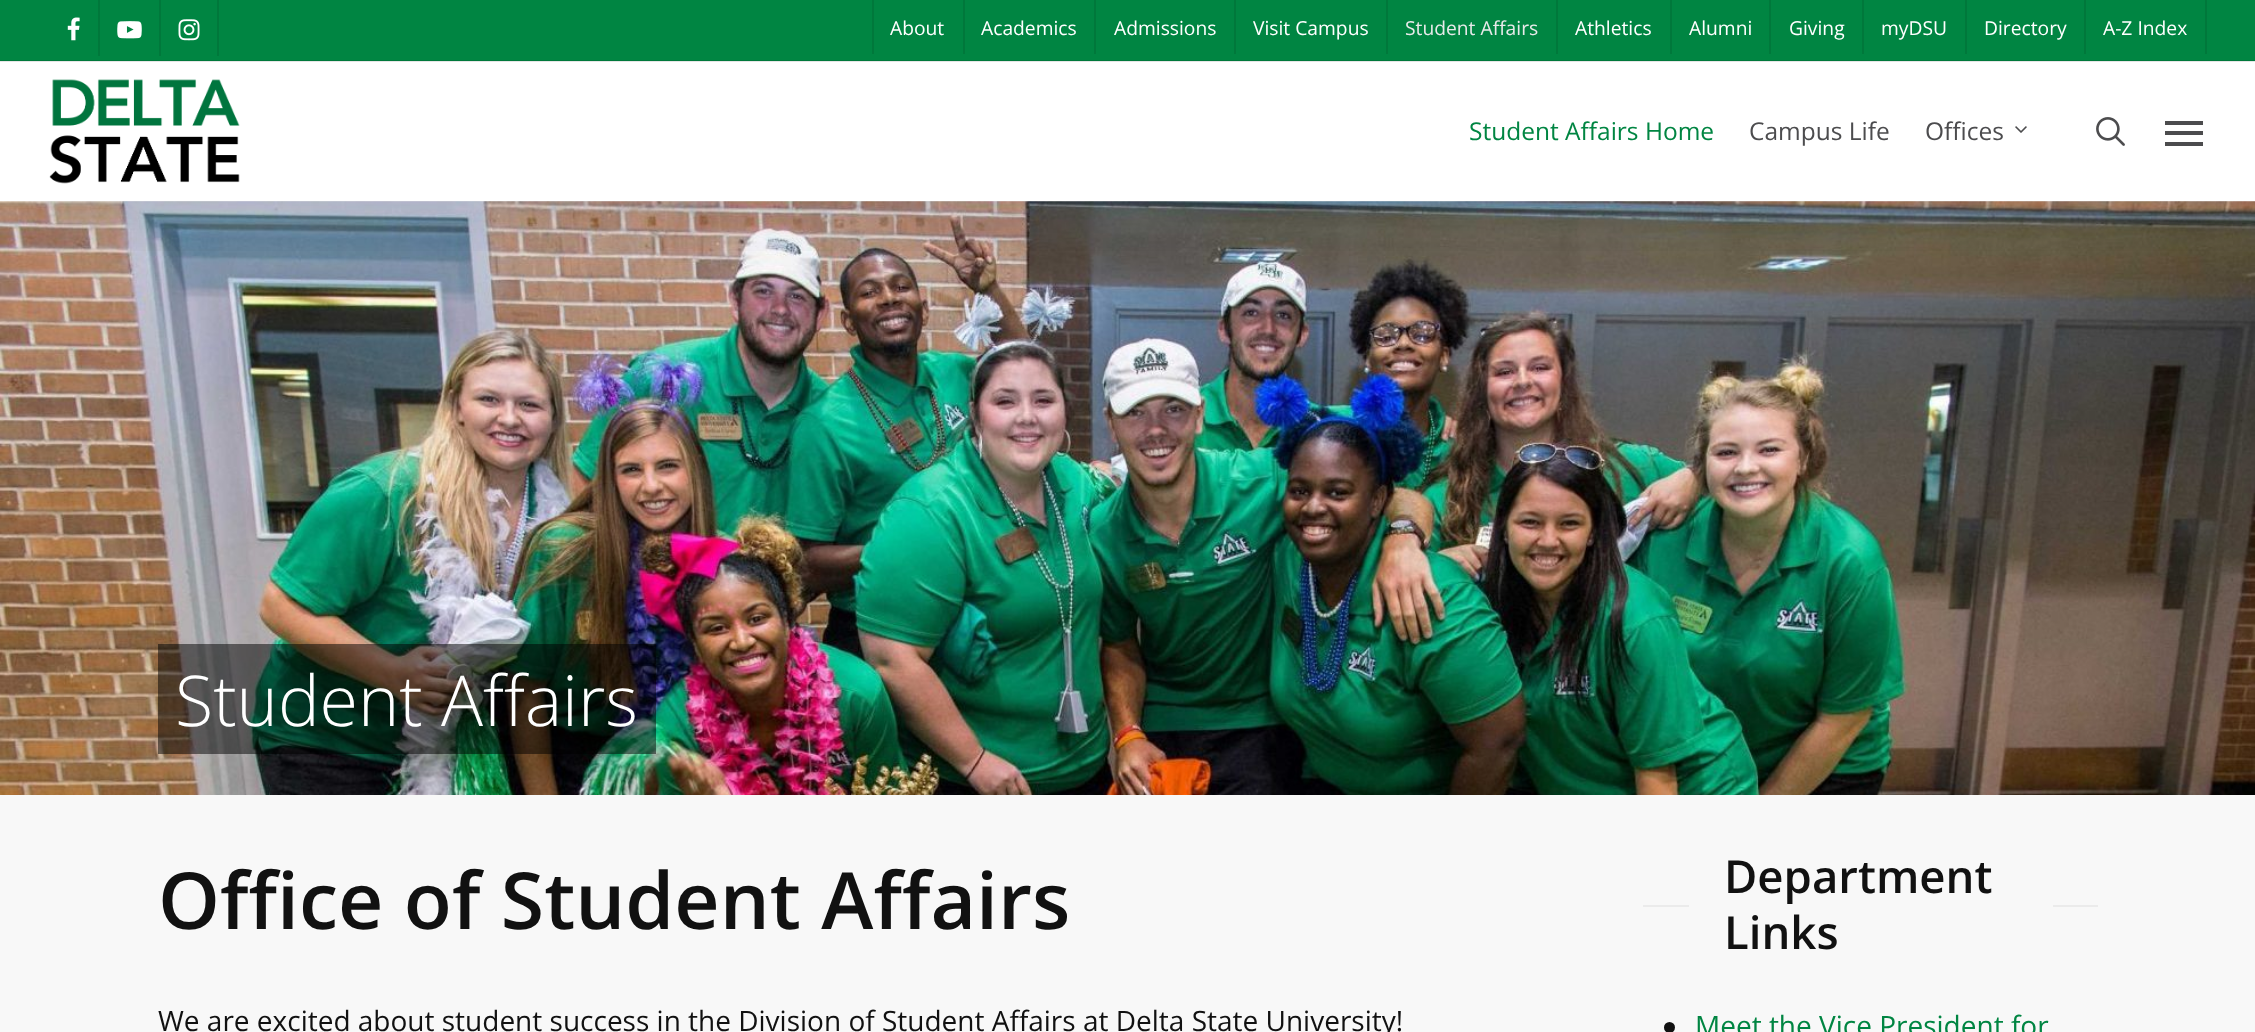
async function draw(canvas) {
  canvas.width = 2255
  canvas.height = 1032
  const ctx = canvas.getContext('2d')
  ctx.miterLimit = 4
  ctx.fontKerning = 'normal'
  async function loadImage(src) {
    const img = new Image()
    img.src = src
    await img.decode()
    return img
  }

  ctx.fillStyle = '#fff'
  ctx.fillRect(0, 0, 2255, 1032)
  ctx.fillStyle = '#e6e6e6'
  ctx.fillRect(0, 61, 2255, 1)
  ctx.fillStyle = '#f8f8f8'
  ctx.fillRect(0, 201, 2255, 831)
  ctx.drawImage(await loadImage('image6.png'), 0, 201, 2255, 594)
  ctx.save()
  ctx.beginPath()
  ctx.rect(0, 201, 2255, 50)
  ctx.clip()
  ctx.fillStyle = '#00000026'
  ctx.filter = 'blur(39.5px)'
  ctx.beginPath()
  ctx.rect(0, 5, 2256, 202)
  ctx.fill()
  ctx.filter = 'none'
  ctx.restore()
  ctx.fillStyle = '#008542'
  ctx.fillRect(0, 0, 2255, 60)
  ctx.fillStyle = '#00783b'
  ctx.fillRect(0, 60, 2255, 1)
  ctx.drawImage(await loadImage('image0.png'), 67, 17, 13, 24)
  ctx.fillRect(98, 0, 2, 56)
  ctx.drawImage(await loadImage('image1.png'), 117, 21, 25, 18)
  ctx.fillRect(217, 0, 2, 56)
  ctx.fillRect(159, 0, 2, 56)
  ctx.drawImage(await loadImage('image2.png'), 178, 19, 22, 22)
  ctx.fillRect(872, 0, 2, 54)
  ctx.font = '19.25px Open Sans'
  ctx.fillStyle = '#fff'
  ctx.fillText('About', 890, 35)
  ctx.fillStyle = '#00783b'
  ctx.fillRect(963, 0, 2, 54)
  ctx.fillStyle = '#fff'
  ctx.fillText('Academics', 981, 35)
  ctx.fillStyle = '#00783b'
  ctx.fillRect(1094, 0, 2, 54)
  ctx.fillStyle = '#fff'
  ctx.fillText('Admissions', 1114, 35)
  ctx.fillStyle = '#00783b'
  ctx.fillRect(1234, 0, 2, 54)
  ctx.fillStyle = '#fff'
  ctx.fillText('Visit Campus', 1253, 35)
  ctx.fillStyle = '#00783b'
  ctx.fillRect(1386, 0, 2, 54)
  ctx.fillStyle = '#e8eaea'
  ctx.fillText('Student Affairs', 1405, 35)
  ctx.fillStyle = '#00783b'
  ctx.fillRect(1556, 0, 2, 54)
  ctx.fillStyle = '#fff'
  ctx.fillText('Athletics', 1575, 35)
  ctx.fillStyle = '#00783b'
  ctx.fillRect(1670, 0, 2, 54)
  ctx.fillStyle = '#fff'
  ctx.fillText('Alumni', 1689, 35)
  ctx.fillStyle = '#00783b'
  ctx.fillRect(1769, 0, 2, 54)
  ctx.fillStyle = '#fff'
  ctx.fillText('Giving', 1789, 35)
  ctx.fillStyle = '#00783b'
  ctx.fillRect(1862, 0, 2, 54)
  ctx.fillStyle = '#fff'
  ctx.fillText('myDSU', 1881, 35)
  ctx.fillStyle = '#00783b'
  ctx.fillRect(1965, 0, 2, 54)
  ctx.fillStyle = '#fff'
  ctx.fillText('Directory', 1984, 35)
  ctx.fillStyle = '#00783b'
  ctx.fillRect(2205, 0, 2, 54)
  ctx.fillRect(2084, 0, 2, 54)
  ctx.fillStyle = '#fff'
  ctx.fillText('A-Z Index', 2103, 35)
  ctx.drawImage(await loadImage('image3.png'), 49, 79, 191, 105)
  ctx.font = '24.5px Open Sans'
  ctx.fillStyle = '#008542'
  ctx.fillText('Student Affairs Home', 1469, 140)
  ctx.fillStyle = '#4c4c4e'
  ctx.fillText('Campus Life', 1749, 140)
  ctx.fillText('Offices', 1925, 140)
  ctx.drawImage(await loadImage('image4.png'), 2015, 126, 12, 7)
  ctx.drawImage(await loadImage('image5.png'), 2096, 117, 29, 29)
  ctx.fillRect(2165, 121, 38, 4)
  ctx.fillRect(2165, 142, 38, 4)
  ctx.fillRect(2165, 131, 38, 4)
  ctx.fillStyle = '#00000080'
  ctx.fillRect(175, 644, 464, 110)
  ctx.font = '300 70px Open Sans'
  ctx.fillStyle = '#fff'
  ctx.fillText('Student Affairs', 175, 726)
  ctx.fillStyle = '#00000080'
  ctx.fillRect(158, 644, 17, 110)
  ctx.fillRect(639, 644, 17, 110)
  ctx.font = '600 78.75px Open Sans'
  ctx.fillStyle = '#111'
  ctx.fillText('Office of Student Affairs', 158, 929)
  ctx.font = '28px Open Sans'
  ctx.fillText('We are excited about student success in the Division of Student Affairs at Delta State University!', 158, 1031)
  ctx.fillStyle = '#ebebeb'
  ctx.fillRect(1643, 905, 46, 2)
  ctx.font = '600 45.5px Open Sans'
  ctx.fillStyle = '#111'
  ctx.fillText('Department', 1724, 893)
  ctx.fillText('Links', 1724, 949)
  ctx.fillStyle = '#ebebeb'
  ctx.fillRect(2053, 905, 45, 2)
  ctx.fillStyle = '#111'
  ctx.beginPath()
  ctx.arc(1669.5, 1027.5, 5.5, 0, 2 * Math.PI)
  ctx.fill()
  ctx.font = '28px Open Sans'
  ctx.fillStyle = '#008542'
  ctx.fillText('Meet the Vice President for', 1695, 1036)
}

draw(document.querySelector('canvas'))
